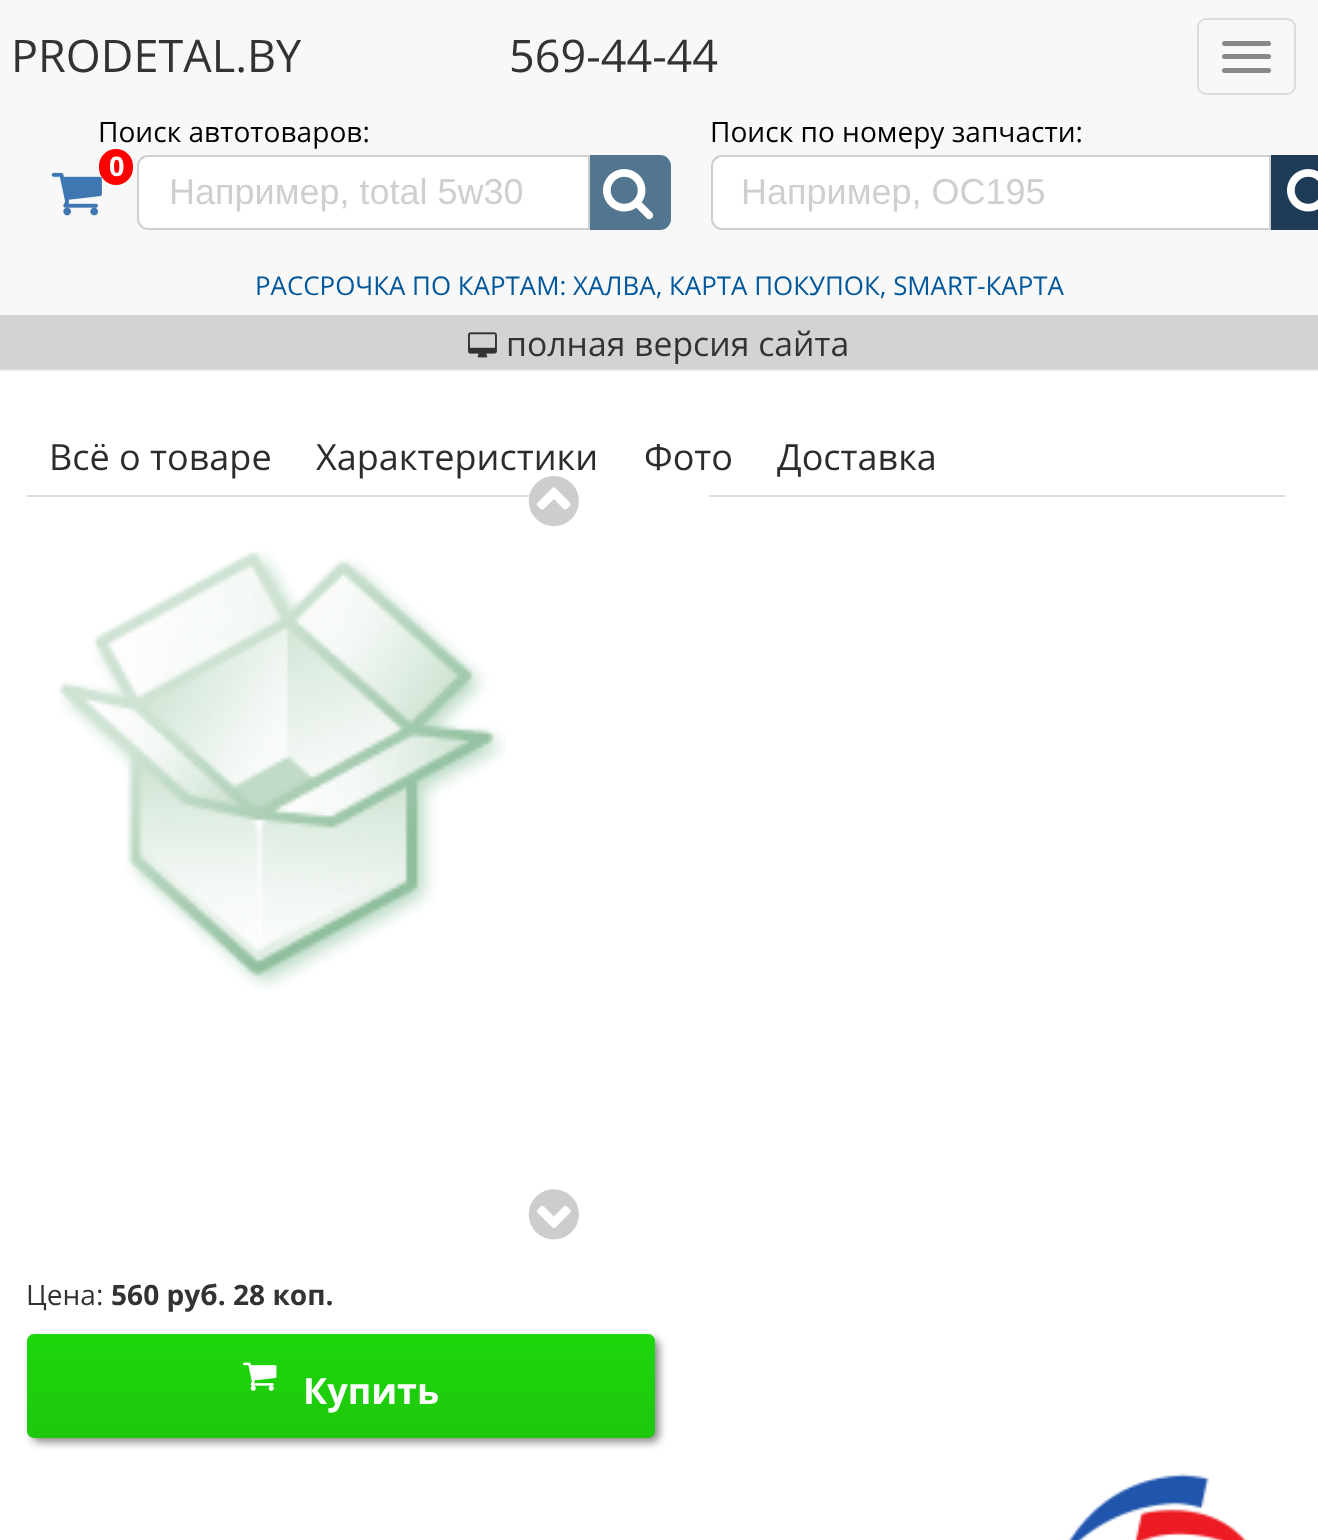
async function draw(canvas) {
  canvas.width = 1318
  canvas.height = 1540
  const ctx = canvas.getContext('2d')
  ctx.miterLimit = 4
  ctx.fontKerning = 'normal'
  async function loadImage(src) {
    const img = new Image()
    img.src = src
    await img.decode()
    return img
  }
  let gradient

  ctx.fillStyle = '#fff'
  ctx.fillRect(0, 0, 1318, 1540)
  ctx.fillStyle = '#f8f8f8'
  ctx.fillRect(0, 0, 1318, 315)
  ctx.fillStyle = '#e7e7e7'
  ctx.fillRect(0, 369, 1318, 2)
  ctx.font = '45px Open Sans'
  ctx.fillStyle = '#333'
  ctx.fillText('PRODETAL.BY', 11, 72)
  ctx.fillText('569-44-44', 509, 72)
  ctx.beginPath()
  ctx.roundRect(1198, 19, 97, 75, 8)
  ctx.strokeStyle = '#ddd'
  ctx.lineWidth = 2
  ctx.stroke()
  ctx.fillStyle = '#888'
  ctx.beginPath()
  ctx.roundRect(1222, 41, 49, 5, 2.5)
  ctx.fill()
  ctx.beginPath()
  ctx.roundRect(1222, 54, 49, 5, 2.5)
  ctx.fill()
  ctx.beginPath()
  ctx.roundRect(1222, 68, 49, 5, 2.5)
  ctx.fill()
  ctx.font = '28.1px Open Sans'
  ctx.fillStyle = '#000'
  ctx.fillText('Поиск автотоваров:', 98, 142)
  ctx.drawImage(await loadImage('image0.png'), 51, 172, 51, 44)
  ctx.fillStyle = '#f00'
  ctx.beginPath()
  ctx.roundRect(99, 149, 34, 36, 17)
  ctx.fill()
  ctx.font = 'bold 27px Open Sans'
  ctx.fillStyle = '#fff'
  ctx.fillText('0', 109, 176)
  ctx.fillStyle = '#527690'
  ctx.beginPath()
  ctx.roundRect(590, 155, 81, 75, [0, 11, 11, 0])
  ctx.fill()
  ctx.drawImage(await loadImage('image1.png'), 603, 169, 51, 51)
  ctx.fillStyle = '#fff'
  ctx.beginPath()
  ctx.roundRect(138, 156, 451, 73, [10, 0, 0, 10])
  ctx.fill()
  ctx.strokeStyle = '#d0cfcf'
  ctx.stroke()
  ctx.font = '36px Liberation Sans'
  ctx.fillStyle = '#d0cfcf'
  ctx.fillText('Например, total 5w30', 169, 204)
  ctx.font = '28.1px Open Sans'
  ctx.fillStyle = '#000'
  ctx.fillText('Поиск по номеру запчасти:', 710, 142)
  ctx.fillStyle = '#fff'
  ctx.beginPath()
  ctx.roundRect(712, 156, 558, 73, [10, 0, 0, 10])
  ctx.fill()
  ctx.stroke()
  ctx.font = '36px Liberation Sans'
  ctx.fillStyle = '#d0cfcf'
  ctx.fillText('Например, OC195', 741, 204)
  ctx.fillStyle = '#1e3b58'
  ctx.fillRect(1271, 155, 47, 75)
  ctx.drawImage(await loadImage('image2.png'), 1287, 169, 31, 43)
  ctx.font = '25.9px Open Sans'
  ctx.fillStyle = '#01579b'
  ctx.fillText('РАССРОЧКА ПО КАРТАМ: ХАЛВА, КАРТА ПОКУПОК, SMART-КАРТА', 255, 295)
  ctx.fillStyle = '#d3d3d3'
  ctx.fillRect(0, 315, 1318, 54)
  ctx.drawImage(await loadImage('image3.png'), 468, 332, 29, 26)
  ctx.font = '33.75px Open Sans'
  ctx.fillStyle = '#333'
  ctx.fillText('полная версия сайта', 506, 356)
  ctx.fillStyle = '#ddd'
  ctx.fillRect(27, 495, 1258, 2)
  ctx.font = '36px Open Sans'
  ctx.fillStyle = '#2c2c2c'
  ctx.fillText('Всё о товаре', 49, 470)
  ctx.fillText('Характеристики', 316, 470)
  ctx.fillText('Фото', 644, 470)
  ctx.fillText('Доставка', 777, 470)
  ctx.drawImage(await loadImage('image4.png'), 59, 551, 448, 439)
  ctx.fillStyle = '#fff'
  ctx.fillRect(529, 495, 180, 2)
  ctx.drawImage(await loadImage('image5.png'), 528, 476, 51, 51)
  ctx.drawImage(await loadImage('image6.png'), 528, 1189, 51, 51)
  ctx.font = '28.1px Open Sans'
  ctx.fillStyle = '#333'
  ctx.fillText('Цена:', 26, 1305)
  ctx.font = 'bold 28.1px Open Sans'
  ctx.fillText('560 руб. 28 коп.', 111, 1305)
  ctx.fillStyle = '#888'
  ctx.filter = 'blur(4.5px)'
  ctx.beginPath()
  ctx.roundRect(32, 1339, 627, 103, 7)
  ctx.fill()
  ctx.filter = 'none'
  gradient = ctx.createLinearGradient(341, 1334, 341, 1438)
  gradient.addColorStop(0, '#1dd60b')
  gradient.addColorStop(1, '#1fc80d')
  ctx.fillStyle = gradient
  ctx.beginPath()
  ctx.roundRect(27, 1334, 628, 104, 7)
  ctx.fill()
  ctx.drawImage(await loadImage('image7.png'), 243, 1362, 34, 29)
  ctx.font = 'bold 36px Open Sans'
  ctx.fillStyle = '#fff'
  ctx.fillText('Купить', 303, 1404)
  ctx.drawImage(await loadImage('image8.png'), 1068, 1473, 179, 67)
}

draw(document.querySelector('canvas'))
